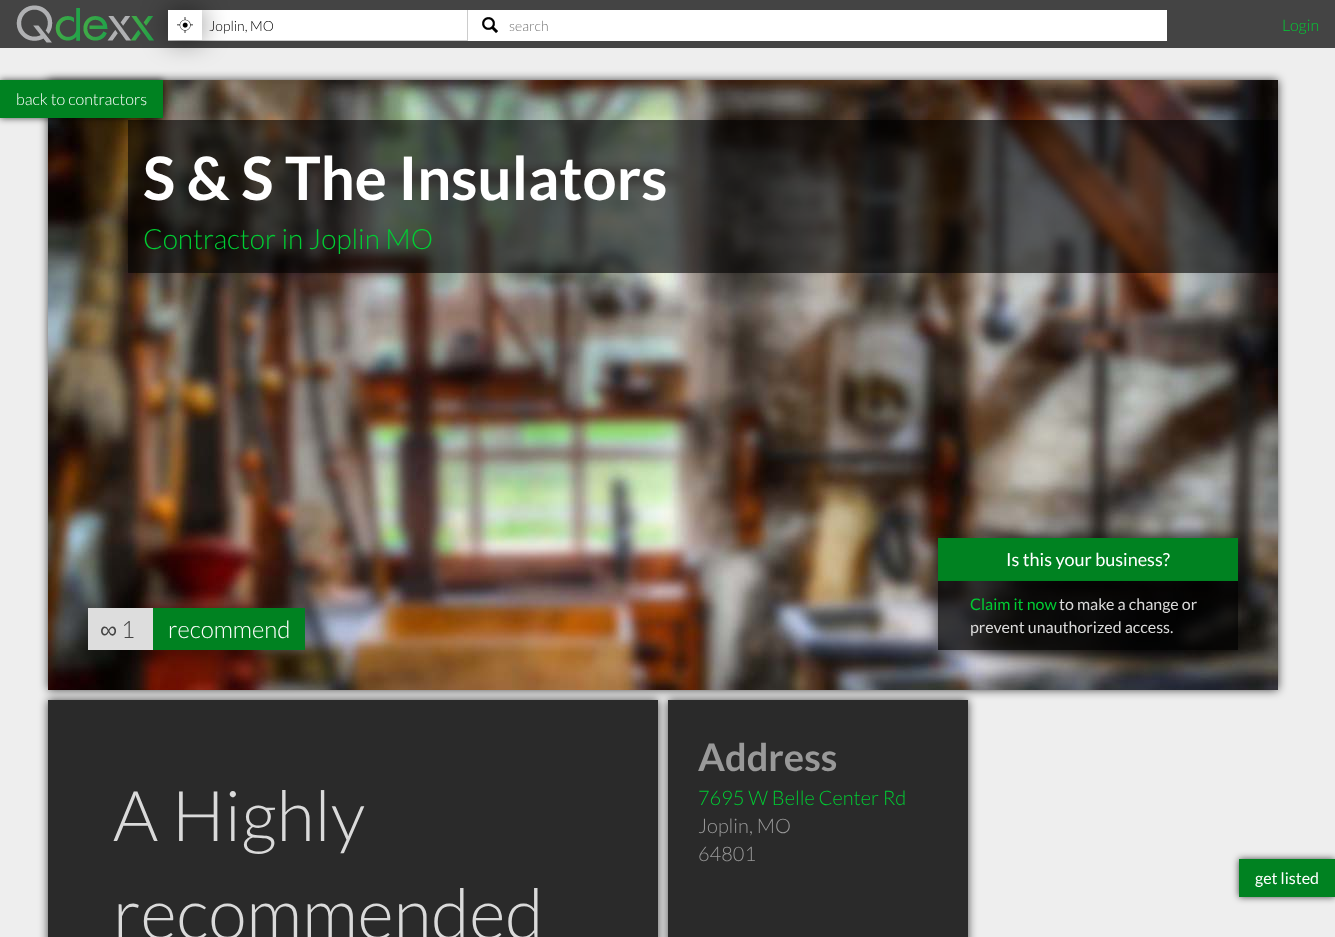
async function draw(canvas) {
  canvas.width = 1335
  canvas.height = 937
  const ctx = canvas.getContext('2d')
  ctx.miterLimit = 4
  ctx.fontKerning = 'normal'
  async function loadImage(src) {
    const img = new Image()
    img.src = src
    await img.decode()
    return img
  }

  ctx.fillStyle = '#eee'
  ctx.fillRect(0, 0, 1335, 937)
  ctx.fillStyle = '#444'
  ctx.fillRect(0, 0, 1335, 48)
  ctx.drawImage(await loadImage('image0.png'), 16, 5, 138, 38)
  ctx.fillStyle = '#fff'
  ctx.fillRect(468, 10, 699, 31)
  ctx.fillStyle = '#ccc'
  ctx.fillRect(467, 10, 1, 31)
  ctx.fillRect(168, 40, 300, 1)
  ctx.fillStyle = '#fff'
  ctx.fillRect(168, 10, 299, 30)
  ctx.fillStyle = '#000000b3'
  ctx.filter = 'blur(5px)'
  ctx.beginPath()
  ctx.rect(48, 80, 1230, 610)
  ctx.fill()
  ctx.filter = 'none'
  ctx.drawImage(await loadImage('image3.png'), 48, 80, 1230, 610)
  ctx.fillStyle = '#00000099'
  ctx.fillRect(128, 120, 1150, 153)
  ctx.fillStyle = '#000000b3'
  ctx.filter = 'blur(3.5px)'
  ctx.beginPath()
  ctx.rect(0, 80, 163, 38)
  ctx.fill()
  ctx.filter = 'none'
  ctx.fillStyle = '#008221'
  ctx.fillRect(0, 80, 163, 38)
  ctx.save()
  ctx.beginPath()
  ctx.moveTo(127, 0)
  ctx.lineTo(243, 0)
  ctx.lineTo(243, 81)
  ctx.lineTo(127, 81)
  ctx.closePath()
  ctx.moveTo(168, 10)
  ctx.lineTo(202, 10)
  ctx.lineTo(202, 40)
  ctx.lineTo(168, 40)
  ctx.closePath()
  ctx.clip('evenodd')
  ctx.fillStyle = '#000'
  ctx.filter = 'blur(15px)'
  ctx.beginPath()
  ctx.rect(173, 15, 24, 20)
  ctx.fill()
  ctx.filter = 'none'
  ctx.restore()
  ctx.drawImage(await loadImage('image1.png'), 177, 17, 16, 16)
  ctx.font = '300 14px Lato'
  ctx.fillStyle = '#000'
  ctx.fillText('Joplin, MO', 209, 31)
  ctx.drawImage(await loadImage('image2.png'), 482, 17, 16, 16)
  ctx.fillStyle = '#757575'
  ctx.fillText('search', 509, 31)
  ctx.font = '300 16px Lato'
  ctx.fillStyle = '#0c3'
  ctx.fillText('Login', 1282, 31)
  ctx.fillStyle = '#fff'
  ctx.fillText('back to contractors', 16, 105)
  ctx.font = 'bold 60px Lato'
  ctx.fillText('S & S The Insulators', 143, 200)
  ctx.font = '300 28px Lato'
  ctx.fillStyle = '#0c3'
  ctx.fillText('Contractor in Joplin MO', 143, 249)
  ctx.fillStyle = '#000000b3'
  ctx.filter = 'blur(5px)'
  ctx.beginPath()
  ctx.rect(48, 700, 610, 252)
  ctx.fill()
  ctx.filter = 'none'
  ctx.fillStyle = '#2a2a2a'
  ctx.fillRect(48, 700, 610, 237)
  ctx.fillStyle = '#000000b3'
  ctx.filter = 'blur(18.5px)'
  ctx.beginPath()
  ctx.rect(88, 608, 217, 42)
  ctx.fill()
  ctx.filter = 'none'
  ctx.fillStyle = '#ddd'
  ctx.fillRect(88, 608, 65, 42)
  ctx.font = '24px Liberation Sans'
  ctx.fillStyle = '#444'
  ctx.fillText('∞', 100, 638)
  ctx.font = '300 24px Lato'
  ctx.fillText('1', 121, 638)
  ctx.fillStyle = '#008221'
  ctx.fillRect(153, 608, 152, 42)
  ctx.fillStyle = '#fff'
  ctx.fillText('recommend', 168, 638)
  ctx.save()
  ctx.beginPath()
  ctx.moveTo(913, 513)
  ctx.lineTo(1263, 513)
  ctx.lineTo(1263, 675)
  ctx.lineTo(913, 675)
  ctx.closePath()
  ctx.moveTo(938, 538)
  ctx.lineTo(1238, 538)
  ctx.lineTo(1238, 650)
  ctx.lineTo(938, 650)
  ctx.closePath()
  ctx.clip('evenodd')
  ctx.fillStyle = '#000000b3'
  ctx.filter = 'blur(8px)'
  ctx.beginPath()
  ctx.rect(938, 538, 300, 112)
  ctx.fill()
  ctx.filter = 'none'
  ctx.restore()
  ctx.fillStyle = '#000000bf'
  ctx.fillRect(938, 581, 300, 69)
  ctx.fillStyle = '#008221'
  ctx.fillRect(938, 538, 300, 43)
  ctx.font = '18px Lato'
  ctx.fillStyle = '#fff'
  ctx.fillText('Is this your business?', 1006, 566)
  ctx.font = '16px Lato'
  ctx.fillStyle = '#0c3'
  ctx.fillText('Claim it now', 970, 610)
  ctx.fillStyle = '#dadada'
  ctx.fillText('to make a change or', 1059, 610)
  ctx.fillText('prevent unauthorized access.', 970, 633)
  ctx.font = '300 70px Lato'
  ctx.fillText('A Highly', 113, 841)
  ctx.fillText('recommended', 113, 939)
  ctx.fillStyle = '#000000b3'
  ctx.filter = 'blur(5px)'
  ctx.beginPath()
  ctx.rect(668, 700, 300, 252)
  ctx.fill()
  ctx.filter = 'none'
  ctx.fillStyle = '#2a2a2a'
  ctx.fillRect(668, 700, 300, 237)
  ctx.font = 'bold 38px Lato'
  ctx.fillStyle = '#999'
  ctx.fillText('Address', 698, 771)
  ctx.font = '300 20px Lato'
  ctx.fillStyle = '#0c3'
  ctx.fillText('7695 W Belle Center Rd', 698, 805)
  ctx.fillStyle = '#999'
  ctx.fillText('Joplin, MO', 698, 833)
  ctx.fillText('64801', 698, 861)
  ctx.fillStyle = '#000000b3'
  ctx.filter = 'blur(3.5px)'
  ctx.beginPath()
  ctx.rect(1239, 859, 96, 38)
  ctx.fill()
  ctx.filter = 'none'
  ctx.fillStyle = '#008221'
  ctx.fillRect(1239, 859, 96, 38)
  ctx.font = '16px Lato'
  ctx.fillStyle = '#fff'
  ctx.fillText('get listed', 1255, 884)
}

draw(document.querySelector('canvas'))
